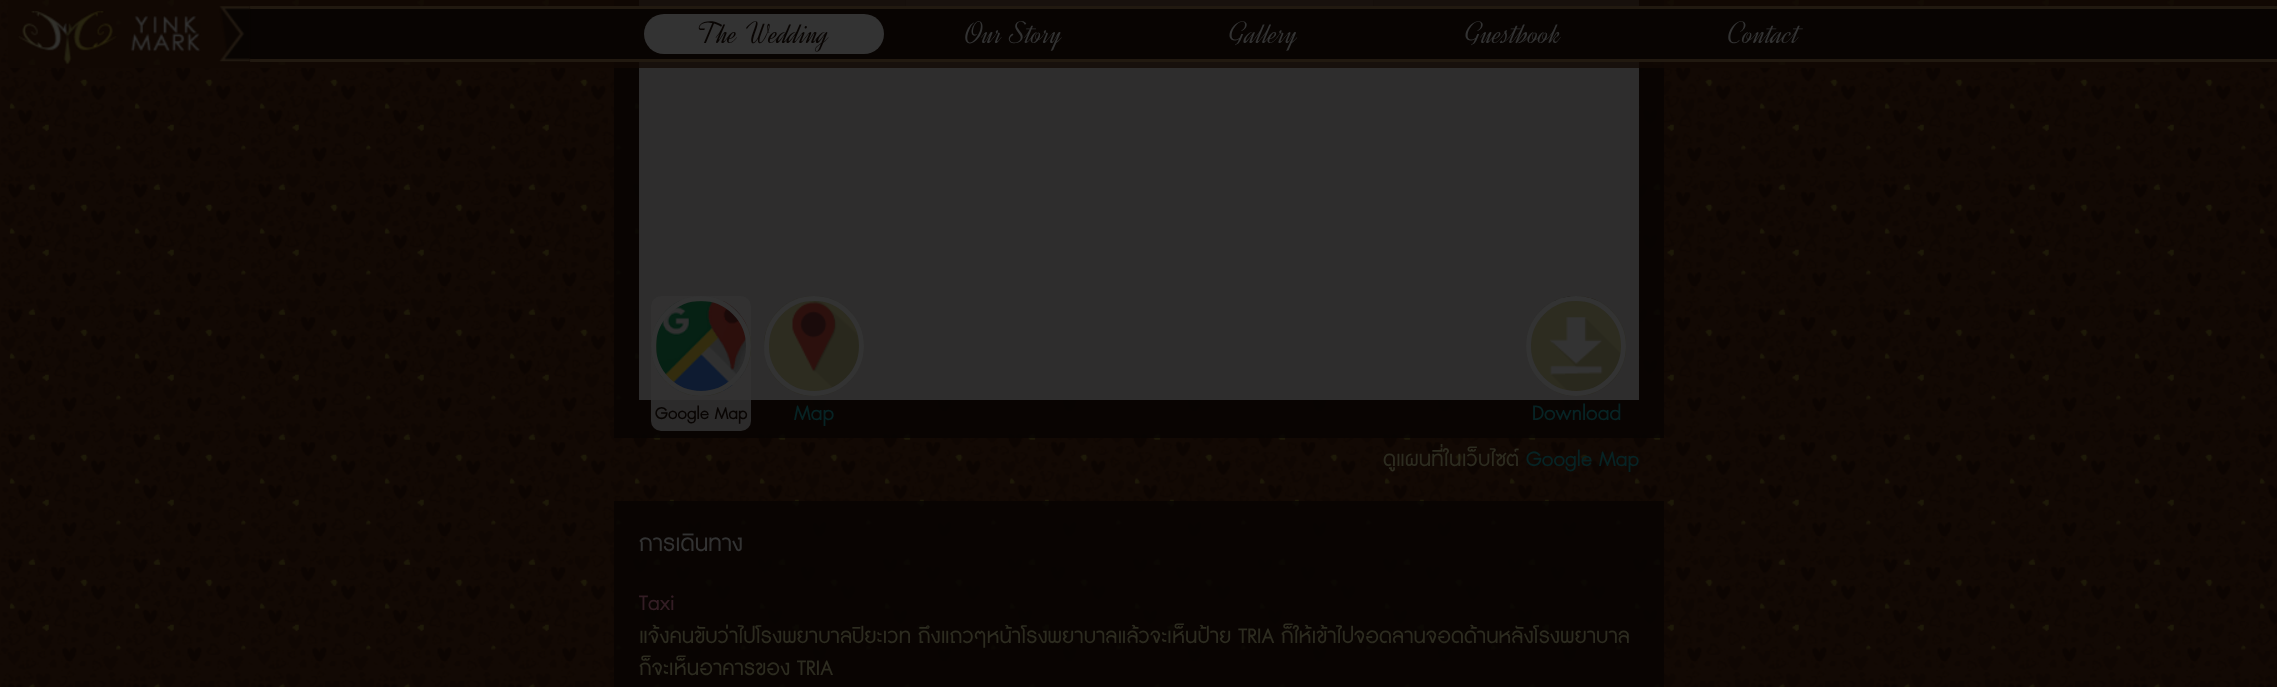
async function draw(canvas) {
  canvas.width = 2277
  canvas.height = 687
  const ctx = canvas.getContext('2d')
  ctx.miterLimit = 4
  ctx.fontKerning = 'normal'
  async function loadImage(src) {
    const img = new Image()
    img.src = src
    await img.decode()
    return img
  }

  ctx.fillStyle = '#fff'
  ctx.fillRect(0, 0, 2277, 687)
  ctx.drawImage(await loadImage('image0.png'), 0, 0, 2277, 687)
  ctx.fillStyle = '#080402cc'
  ctx.fillRect(614, 0, 1050, 438)
  ctx.fillStyle = '#2e2d2d'
  ctx.fillRect(639, 0, 1000, 400)
  ctx.fillStyle = '#333'
  ctx.beginPath()
  ctx.roundRect(905, -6, 469, 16, 6)
  ctx.fill()
  ctx.strokeStyle = '#0000001f'
  ctx.strokeRect(905.5, -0.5, 468, 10)
  ctx.fillStyle = '#120904cc'
  ctx.fillRect(8, 0, 2264, 68)
  ctx.fillStyle = '#080402'
  ctx.fillRect(250, 9, 2027, 50)
  ctx.fillStyle = '#211910'
  ctx.fillRect(250, 6, 2027, 3)
  ctx.fillRect(250, 59, 2027, 3)
  ctx.drawImage(await loadImage('image1.png'), 18, 11, 183, 54)
  ctx.drawImage(await loadImage('image2.png'), 219, 6, 32, 56)
  ctx.fillStyle = '#333'
  ctx.beginPath()
  ctx.roundRect(644, 14, 240, 40, 20)
  ctx.fill()
  ctx.font = '300 31.25px Dynalight'
  ctx.fillStyle = '#080402'
  ctx.fillText('The Wedding', 698, 43)
  ctx.fillStyle = '#333'
  ctx.fillText('Our Story', 965, 43)
  ctx.fillText('Gallery', 1229, 43)
  ctx.fillText('Guestbook', 1465, 43)
  ctx.fillText('Contact', 1728, 43)
  ctx.fillStyle = '#333333d9'
  ctx.beginPath()
  ctx.roundRect(651, 296, 100, 135, 10)
  ctx.fill()
  ctx.drawImage(await loadImage('image3.png'), 651, 300, 100, 96)
  ctx.beginPath()
  ctx.arc(701, 346, 47.5, 0, 2 * Math.PI)
  ctx.strokeStyle = '#333'
  ctx.lineWidth = 5
  ctx.stroke()
  ctx.font = '22.5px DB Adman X'
  ctx.fillStyle = '#080402'
  ctx.fillText('Google Map', 655, 419)
  ctx.drawImage(await loadImage('image4.png'), 764, 296, 100, 100)
  ctx.beginPath()
  ctx.arc(814, 346, 47.5, 0, 2 * Math.PI)
  ctx.stroke()
  ctx.font = '27.5px DB Adman X'
  ctx.fillStyle = '#072324'
  ctx.fillText('Map', 794, 420)
  ctx.drawImage(await loadImage('image5.png'), 1526, 296, 100, 100)
  ctx.beginPath()
  ctx.arc(1576, 346, 47.5, 0, 2 * Math.PI)
  ctx.stroke()
  ctx.fillText('Download', 1532, 420)
  ctx.fillStyle = '#2d2c20'
  ctx.fillText('ดูแผนที่ในเว็บไซต์', 1383, 466)
  ctx.fillStyle = '#072324'
  ctx.fillText('Google Map', 1526, 466)
  ctx.fillStyle = '#080402cc'
  ctx.fillRect(614, 501, 1050, 186)
  ctx.font = '30px DB Adman X'
  ctx.fillStyle = '#333'
  ctx.fillText('การเดินทาง', 639, 551)
  ctx.font = '27.5px DB Adman X'
  ctx.fillStyle = '#331d24'
  ctx.fillText('Taxi', 639, 610)
  ctx.fillStyle = '#2d2c20'
  ctx.fillText('แจ้งคนขับว่าไปโรงพยาบาลปิยะเวท ถึงแถวๆหน้าโรงพยาบาลแล้วจะเห็นป้าย TRIA ก็ให้เข้าไปจอดลานจอดด้านหลังโรงพยาบาล', 639, 643)
  ctx.fillText('ก็จะเห็นอาคารของ TRIA', 639, 675)
}

draw(document.querySelector('canvas'))
